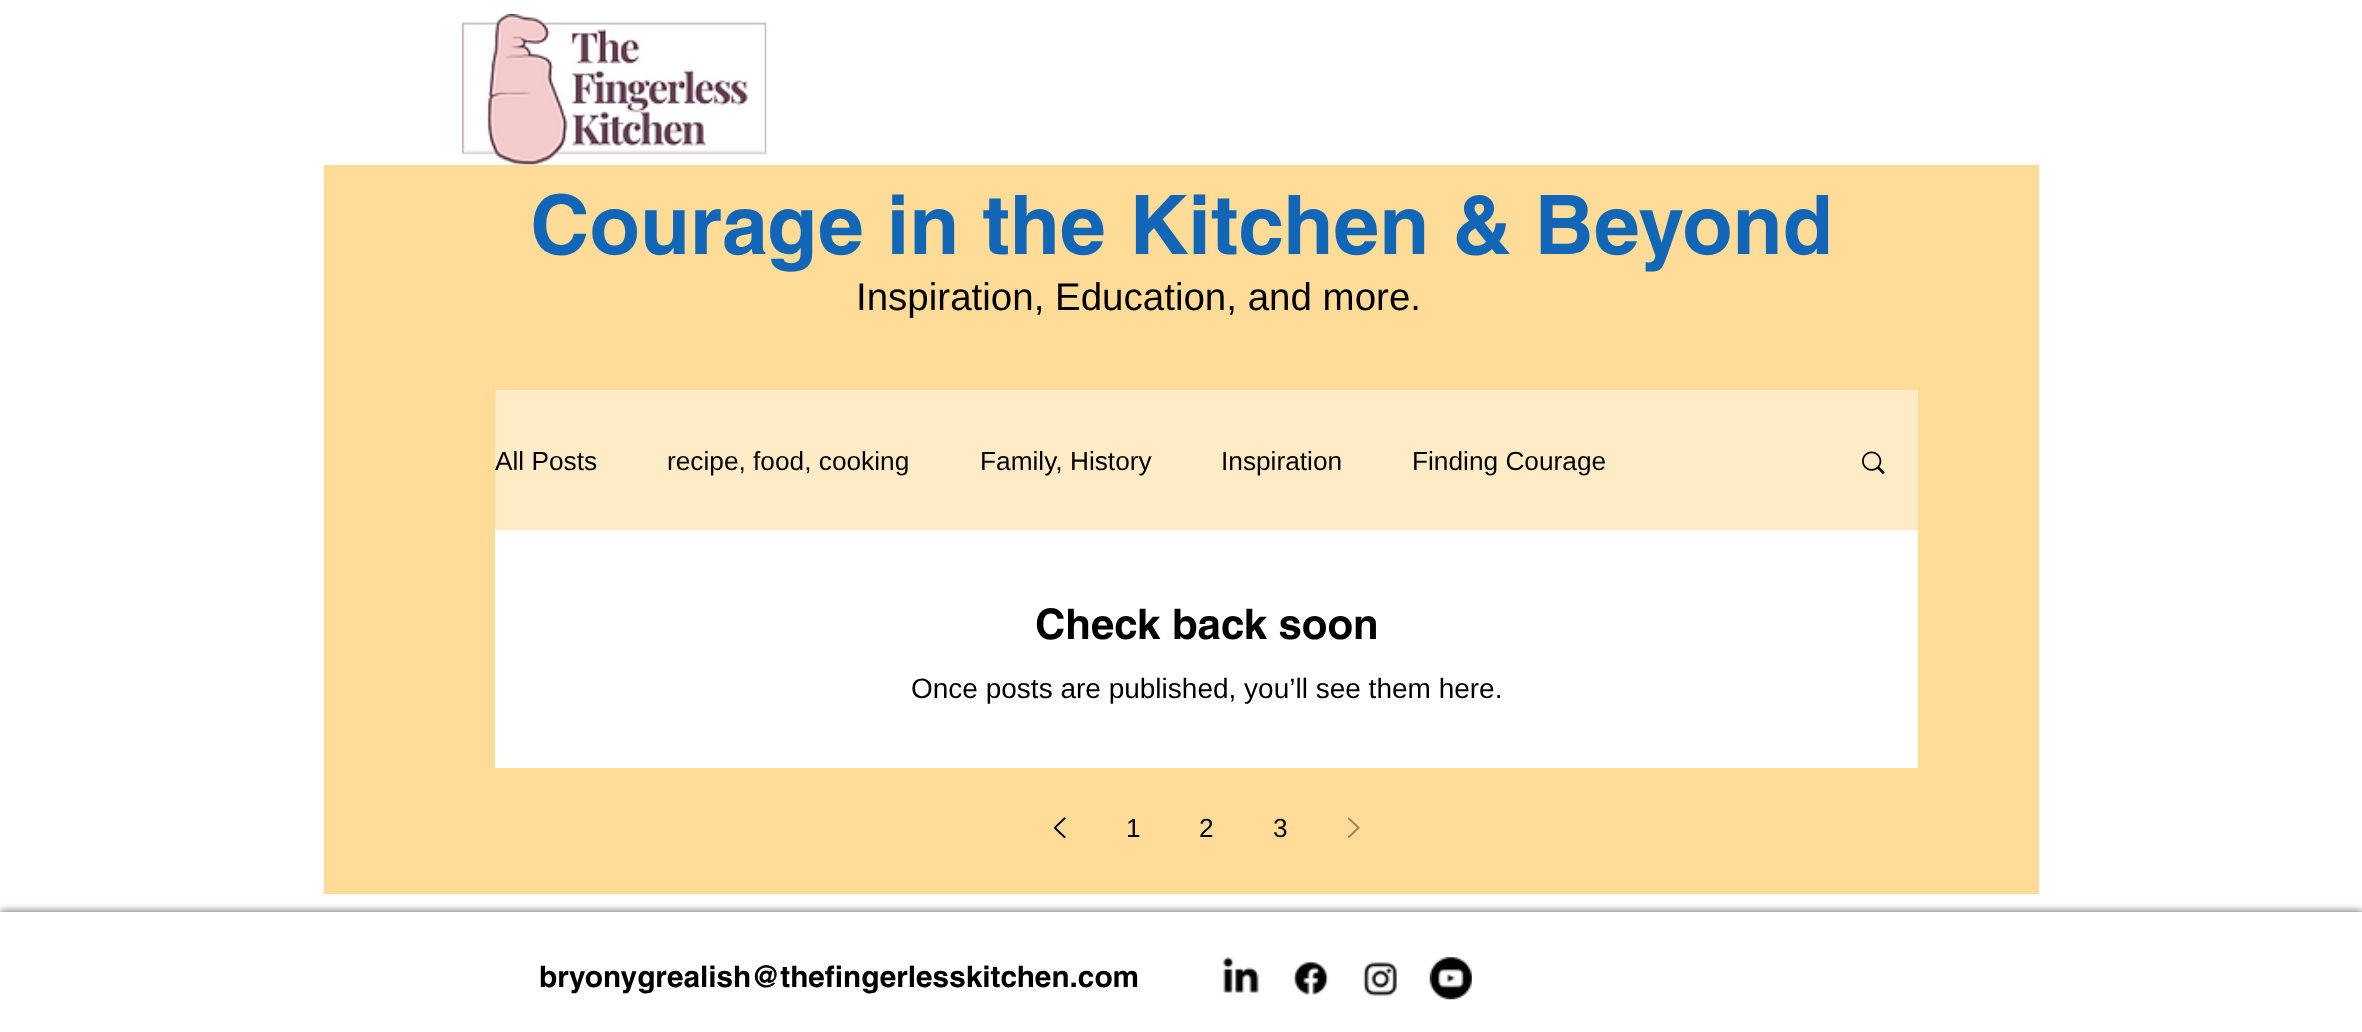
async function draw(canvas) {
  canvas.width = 2362
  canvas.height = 1032
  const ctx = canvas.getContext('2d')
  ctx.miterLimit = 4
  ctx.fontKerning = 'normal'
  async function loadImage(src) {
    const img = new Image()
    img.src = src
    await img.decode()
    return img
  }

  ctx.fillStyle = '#fff'
  ctx.fillRect(0, 0, 2362, 1032)
  ctx.drawImage(await loadImage('image0.png'), 462, 14, 305, 151)
  ctx.fillStyle = '#fedc97'
  ctx.fillRect(324, 165, 1715, 729)
  ctx.font = 'bold 82.25px helvetica'
  ctx.fillStyle = '#1266b7'
  ctx.fillText('Courage in the Kitchen & Beyond', 530, 254)
  ctx.font = '38.5px Liberation Sans'
  ctx.fillStyle = '#000'
  ctx.fillText('Inspiration, Education, and more.', 856, 310)
  ctx.fillStyle = '#ffecc7'
  ctx.fillRect(495, 390, 1423, 140)
  ctx.font = '26.25px Liberation Sans'
  ctx.fillStyle = '#000'
  ctx.fillText('All Posts', 495, 470)
  ctx.fillText('recipe, food, cooking', 667, 470)
  ctx.fillText('Family, History', 980, 470)
  ctx.fillText('Inspiration', 1221, 470)
  ctx.fillText('Finding Courage', 1412, 470)
  ctx.drawImage(await loadImage('image1.png'), 1862, 451, 23, 23)
  ctx.fillStyle = '#fff'
  ctx.fillRect(495, 530, 1423, 238)
  ctx.font = 'bold 42px helvetica'
  ctx.fillStyle = '#000'
  ctx.fillText('Check back soon', 1035, 639)
  ctx.font = '28px Liberation Sans'
  ctx.fillText('Once posts are published, you’ll see them here.', 911, 698)
  ctx.drawImage(await loadImage('image2.png'), 1054, 817, 12, 21)
  ctx.font = '26.25px Liberation Sans'
  ctx.fillText('1', 1126, 837)
  ctx.fillText('2', 1199, 837)
  ctx.fillText('3', 1273, 837)
  ctx.drawImage(await loadImage('image3.png'), 1348, 817, 12, 21)
  ctx.save()
  ctx.beginPath()
  ctx.rect(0, 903, 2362, 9)
  ctx.clip()
  ctx.fillStyle = '#000000b3'
  ctx.filter = 'blur(4.5px)'
  ctx.beginPath()
  ctx.rect(0, 912, 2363, 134)
  ctx.fill()
  ctx.filter = 'none'
  ctx.restore()
  ctx.font = 'bold 29.75px helvetica'
  ctx.fillText('bryonygrealish@thefingerlesskitchen.com', 539, 987)
  ctx.drawImage(await loadImage('image4.png'), 1222, 957, 37, 36)
  ctx.drawImage(await loadImage('image5.png'), 1293, 960, 36, 35)
  ctx.drawImage(await loadImage('image6.png'), 1363, 962, 34, 35)
  ctx.drawImage(await loadImage('image7.png'), 1429, 957, 43, 43)
}

draw(document.querySelector('canvas'))
